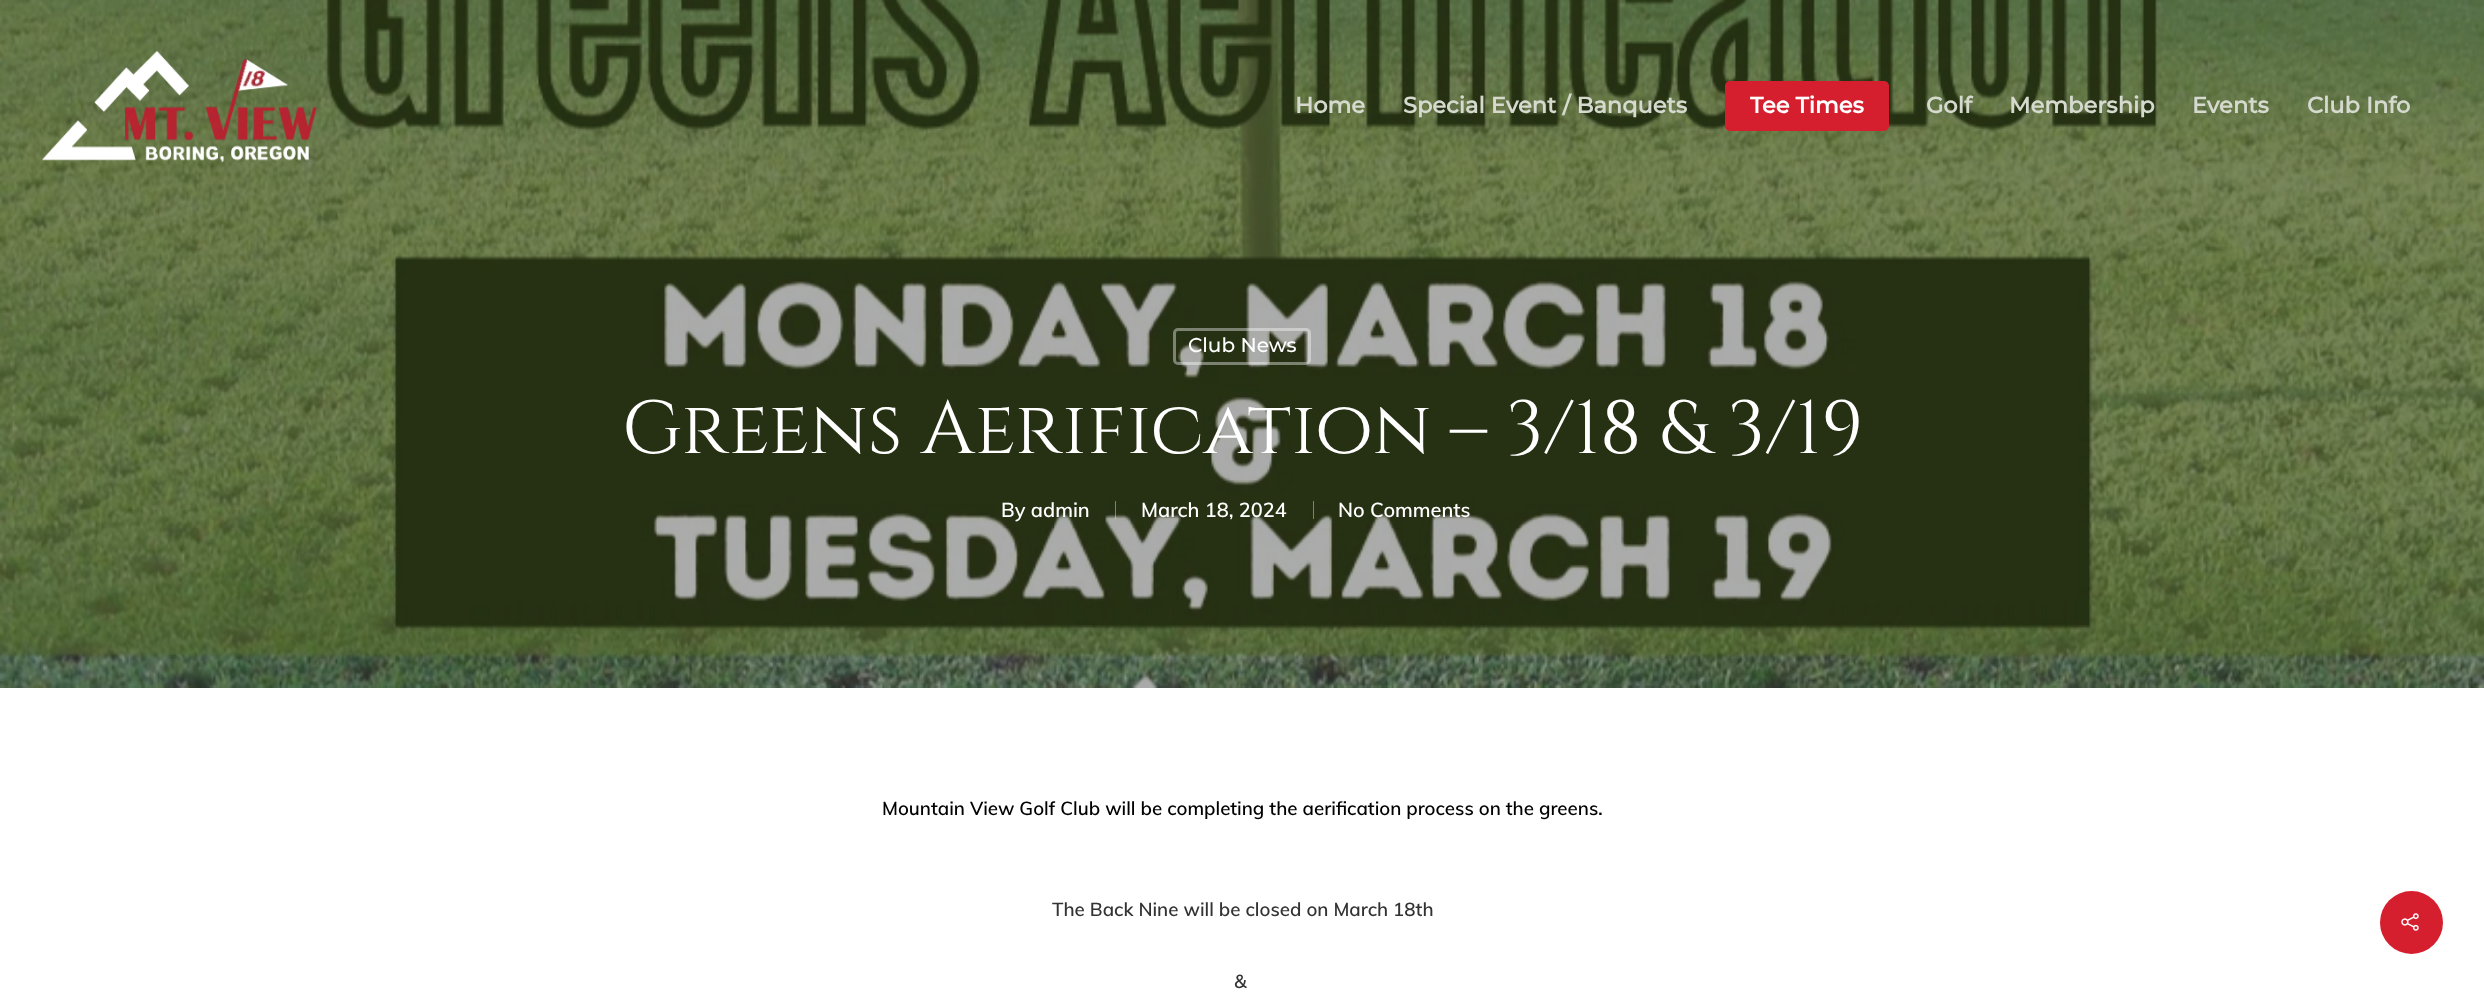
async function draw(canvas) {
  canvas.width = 2484
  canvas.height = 996
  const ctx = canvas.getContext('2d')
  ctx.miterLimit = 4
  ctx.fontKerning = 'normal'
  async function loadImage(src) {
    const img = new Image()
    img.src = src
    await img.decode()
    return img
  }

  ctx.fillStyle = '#fff'
  ctx.fillRect(0, 0, 2484, 996)
  ctx.drawImage(await loadImage('image1.png'), 0, 0, 2484, 688)
  ctx.drawImage(await loadImage('image0.png'), 42, 50, 275, 113)
  ctx.font = 'bold 22.5px Montserrat'
  ctx.fillStyle = '#d5d9ce'
  ctx.fillText('Home', 1295, 113)
  ctx.fillText('Special Event / Banquets', 1403, 113)
  ctx.fillStyle = '#d61f2e'
  ctx.beginPath()
  ctx.roundRect(1725, 81, 164, 50, 5)
  ctx.fill()
  ctx.fillStyle = '#fff'
  ctx.fillText('Tee Times', 1750, 113)
  ctx.fillStyle = '#d5d9ce'
  ctx.fillText('Golf', 1926, 113)
  ctx.fillText('Membership', 2009, 113)
  ctx.fillText('Events', 2192, 113)
  ctx.fillText('Club Info', 2307, 113)
  ctx.beginPath()
  ctx.roundRect(1174.5, 329.5, 135, 34, 3.5)
  ctx.strokeStyle = '#ffffff66'
  ctx.lineWidth = 3
  ctx.stroke()
  ctx.font = '100 20px Montserrat'
  ctx.fillStyle = '#fff'
  ctx.fillText('Club News', 1188, 352)
  ctx.font = '75px Cinzel'
  ctx.fillText('Greens Aerification – 3/18 & 3/19', 622, 453)
  ctx.font = '600 20px Muli'
  ctx.fillText('By admin', 1001, 517)
  ctx.fillStyle = '#ffffff66'
  ctx.fillRect(1115, 501, 1, 18)
  ctx.fillStyle = '#fff'
  ctx.fillText('March 18, 2024', 1141, 517)
  ctx.fillStyle = '#7d8371'
  ctx.fillRect(1313, 501, 1, 18)
  ctx.fillStyle = '#fff'
  ctx.fillText('No Comments', 1338, 517)
  ctx.font = '600 18.75px Muli'
  ctx.fillStyle = '#000'
  ctx.fillText('Mountain View Golf Club will be completing the aerification process on the greens', 882, 815)
  ctx.font = '600 20px Muli'
  ctx.fillText('.', 1598, 815)
  ctx.font = '600 18.75px Muli'
  ctx.fillStyle = '#333'
  ctx.fillText('The Back Nine will be closed on March 18th', 1052, 916)
  ctx.fillText('&', 1234, 988)
  ctx.fillStyle = '#d61f2e'
  ctx.beginPath()
  ctx.arc(2411.5, 922.5, 31.5, 0, 2 * Math.PI)
  ctx.fill()
  ctx.drawImage(await loadImage('image2.png'), 2401, 913, 18, 18)
}

draw(document.querySelector('canvas'))
